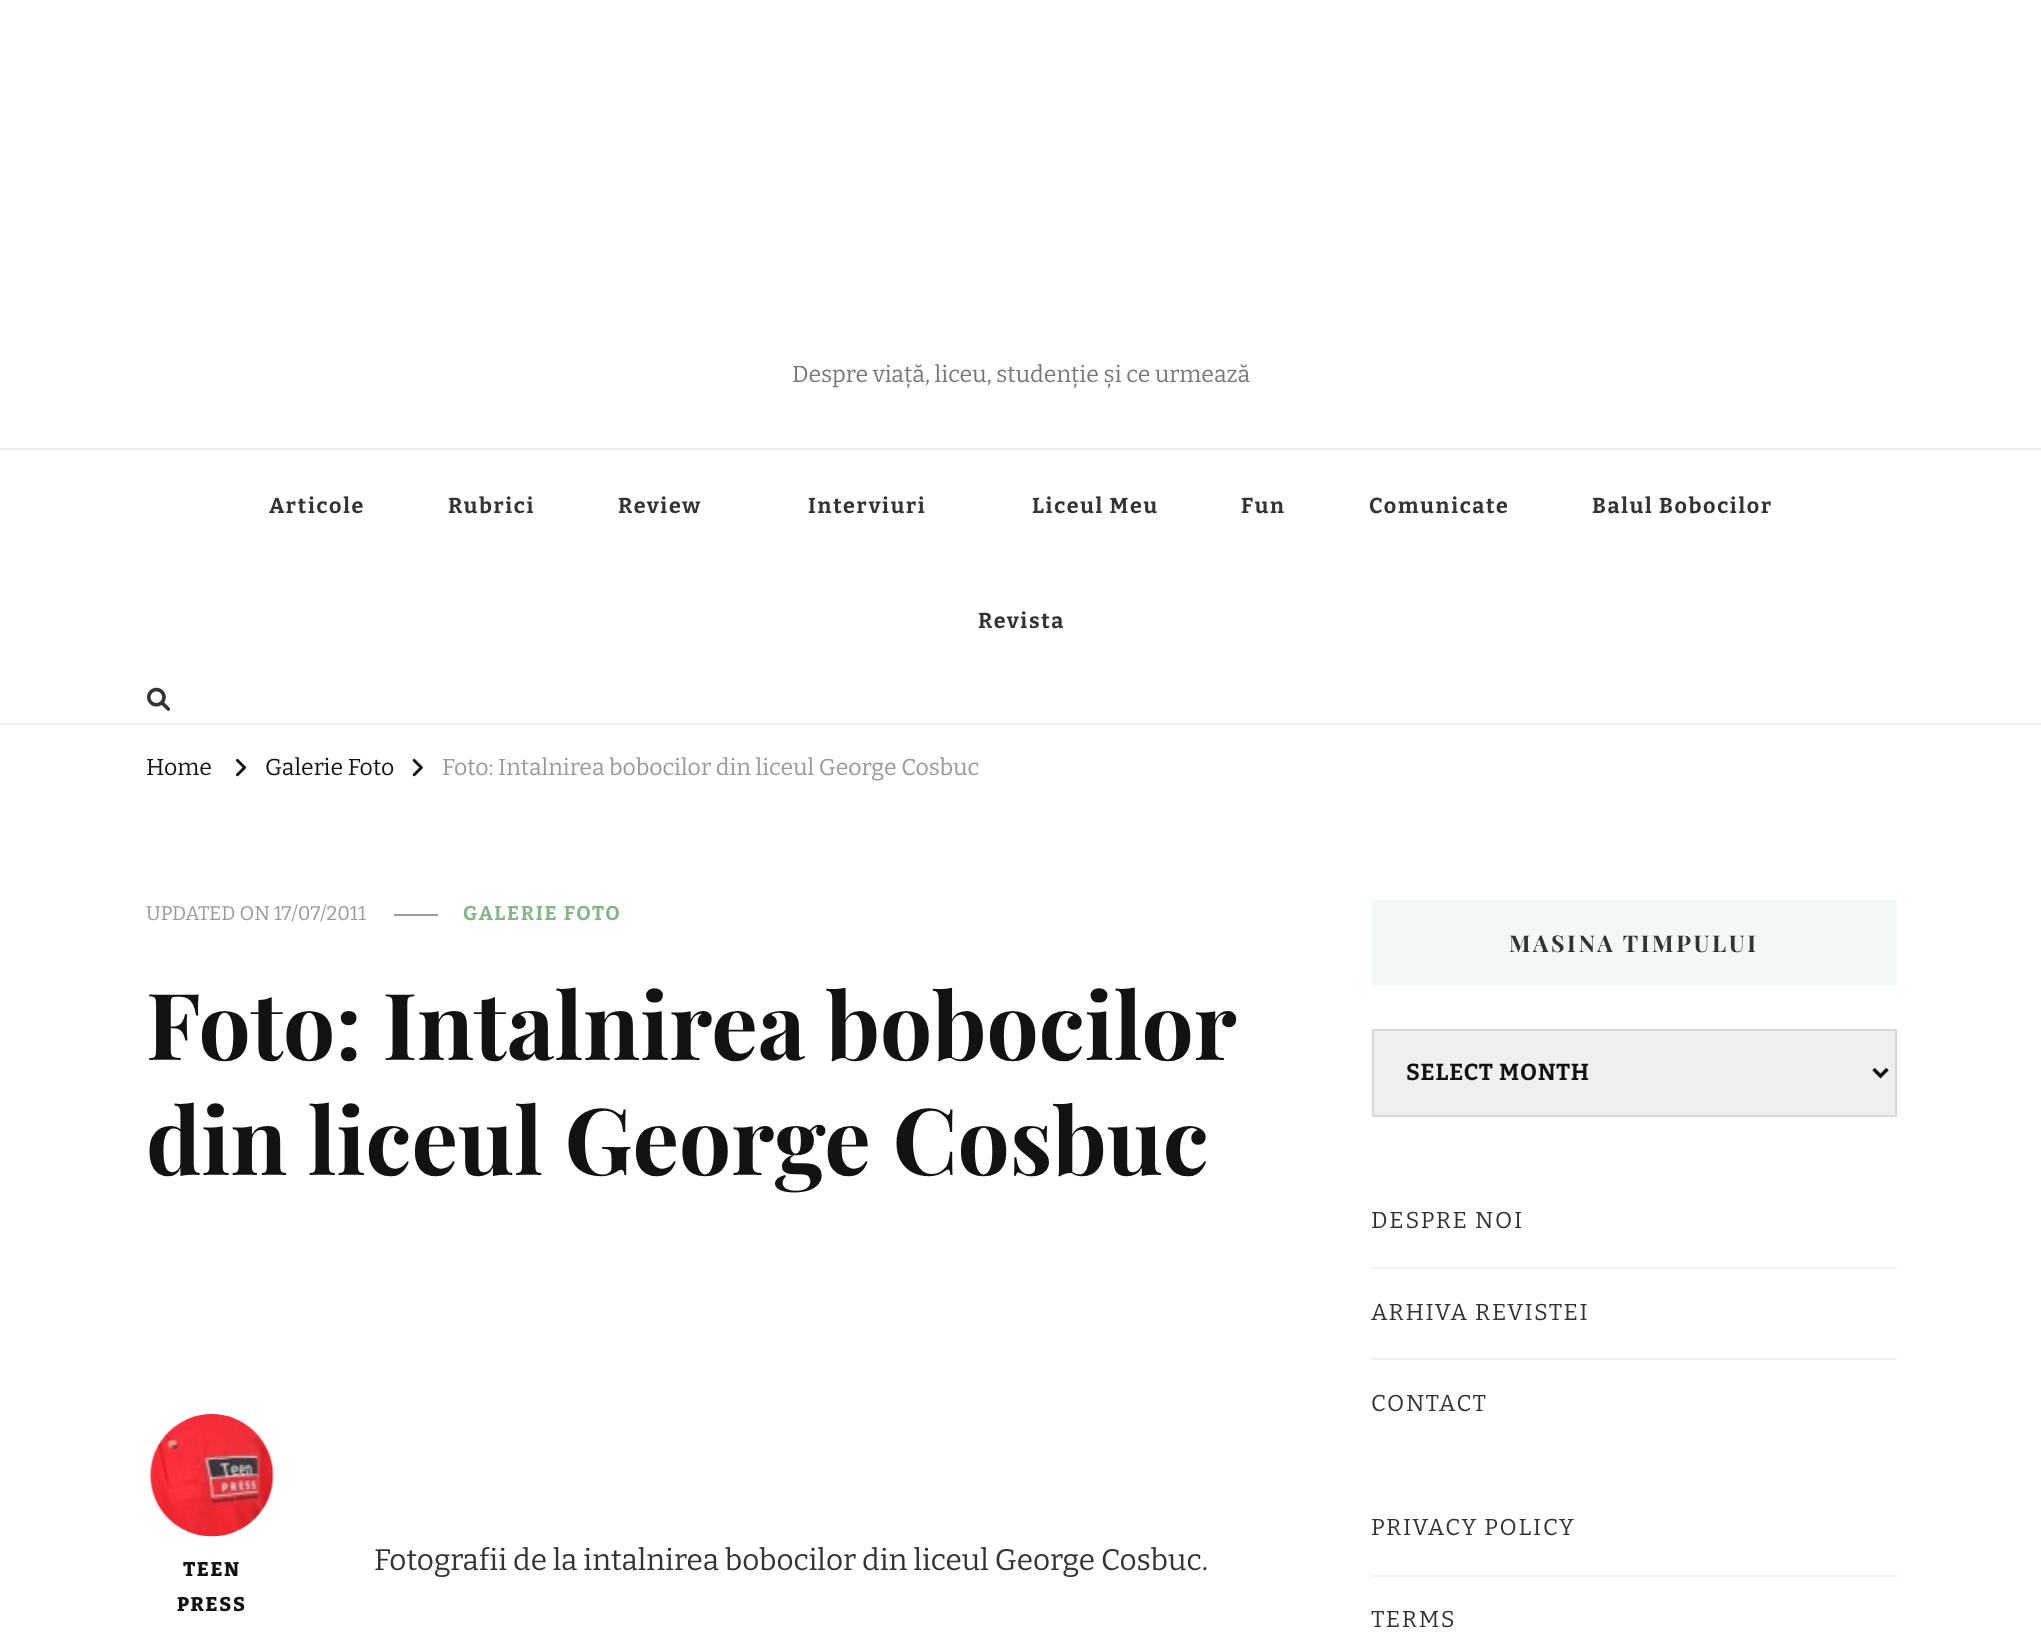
async function draw(canvas) {
  canvas.width = 2041
  canvas.height = 1640
  const ctx = canvas.getContext('2d')
  ctx.miterLimit = 4
  ctx.fontKerning = 'normal'
  async function loadImage(src) {
    const img = new Image()
    img.src = src
    await img.decode()
    return img
  }

  ctx.fillStyle = '#fff'
  ctx.fillRect(0, 0, 2041, 1640)
  ctx.font = '23.1px Bitter'
  ctx.fillStyle = '#777'
  ctx.fillText('Despre viață, liceu, studenție și ce urmează', 792, 382)
  ctx.fillStyle = '#ededed'
  ctx.fillRect(0, 448, 2041, 2)
  ctx.fillRect(0, 723, 2041, 2)
  ctx.letterSpacing = '1.75px'
  ctx.font = 'bold 21.5px Bitter'
  ctx.fillStyle = '#333'
  ctx.fillText('Articole', 269, 513)
  ctx.fillText('Rubrici', 448, 513)
  ctx.fillText('Review', 618, 513)
  ctx.fillText('Interviuri', 808, 513)
  ctx.fillText('Liceul Meu', 1032, 513)
  ctx.fillText('Fun', 1241, 513)
  ctx.fillText('Comunicate', 1369, 513)
  ctx.fillText('Balul Bobocilor', 1592, 513)
  ctx.fillText('Revista', 978, 628)
  ctx.drawImage(await loadImage('image0.png'), 147, 687, 24, 24)
  ctx.letterSpacing = '0px'
  ctx.font = '23.1px Bitter'
  ctx.fillStyle = '#121212'
  ctx.fillText('Home', 146, 775)
  ctx.drawImage(await loadImage('image1.png'), 236, 758, 11, 19)
  ctx.fillText('Galerie Foto', 265, 775)
  ctx.drawImage(await loadImage('image2.png'), 412, 758, 11, 19)
  ctx.fillStyle = '#999'
  ctx.fillText('Foto: Intalnirea bobocilor din liceul George Cosbuc', 442, 775)
  ctx.font = '19.75px Bitter'
  ctx.fillText('UPDATED ON 17/07/2011', 146, 920)
  ctx.fillRect(394, 914, 44, 2)
  ctx.letterSpacing = '1.75px'
  ctx.font = 'bold 19.75px Bitter'
  ctx.fillStyle = '#80b784'
  ctx.fillText('GALERIE FOTO', 463, 920)
  ctx.letterSpacing = '0px'
  ctx.wordSpacing = '-1px'
  ctx.font = 'bold 92.5px Playfair Display'
  ctx.fillStyle = '#121212'
  ctx.fillText('Foto: Intalnirea bobocilor', 146, 1060)
  ctx.wordSpacing = '0px'
  ctx.fillText('din liceul George Cosbuc', 146, 1175)
  ctx.drawImage(await loadImage('image3.png'), 150, 1414, 124, 123)
  ctx.letterSpacing = '1.75px'
  ctx.font = '800 19.75px Bitter'
  ctx.fillText('TEEN', 183, 1576)
  ctx.fillText('PRESS', 177, 1611)
  ctx.letterSpacing = '0px'
  ctx.font = '29.75px Bitter'
  ctx.fillStyle = '#333'
  ctx.fillText('Fotografii de la intalnirea bobocilor din liceul George Cosbuc.', 374, 1570)
  ctx.fillStyle = '#f2f8f3'
  ctx.fillRect(1372, 900, 525, 85)
  ctx.letterSpacing = '2.6px'
  ctx.font = 'bold 23.1px Playfair Display'
  ctx.fillStyle = '#333'
  ctx.fillText('MASINA TIMPULUI', 1509, 952)
  ctx.fillStyle = '#efefef'
  ctx.beginPath()
  ctx.rect(1373, 1030, 523, 86)
  ctx.fill()
  ctx.strokeStyle = '#d7d7d7'
  ctx.lineWidth = 2
  ctx.stroke()
  ctx.beginPath()
  ctx.moveTo(1873.5, 1069)
  ctx.lineTo(1880.5, 1076)
  ctx.lineTo(1887.5, 1069)
  ctx.strokeStyle = '#121212'
  ctx.lineWidth = 3.5
  ctx.stroke()
  ctx.letterSpacing = '0.9px'
  ctx.font = 'bold 23.1px Bitter'
  ctx.fillStyle = '#121212'
  ctx.fillText('SELECT MONTH', 1406, 1080)
  ctx.fillStyle = '#f2f2f2'
  ctx.fillRect(1372, 1267, 525, 2)
  ctx.letterSpacing = '1.75px'
  ctx.font = '23.1px Bitter'
  ctx.fillStyle = '#333'
  ctx.fillText('DESPRE NOI', 1371, 1228)
  ctx.fillStyle = '#f2f2f2'
  ctx.fillRect(1372, 1358, 525, 2)
  ctx.fillStyle = '#333'
  ctx.fillText('ARHIVA REVISTEI', 1371, 1320)
  ctx.fillText('CONTACT', 1371, 1411)
  ctx.fillStyle = '#f2f2f2'
  ctx.fillRect(1372, 1575, 525, 2)
  ctx.fillStyle = '#333'
  ctx.fillText('PRIVACY POLICY', 1371, 1535)
  ctx.fillText('TERMS', 1371, 1627)
}

draw(document.querySelector('canvas'))
